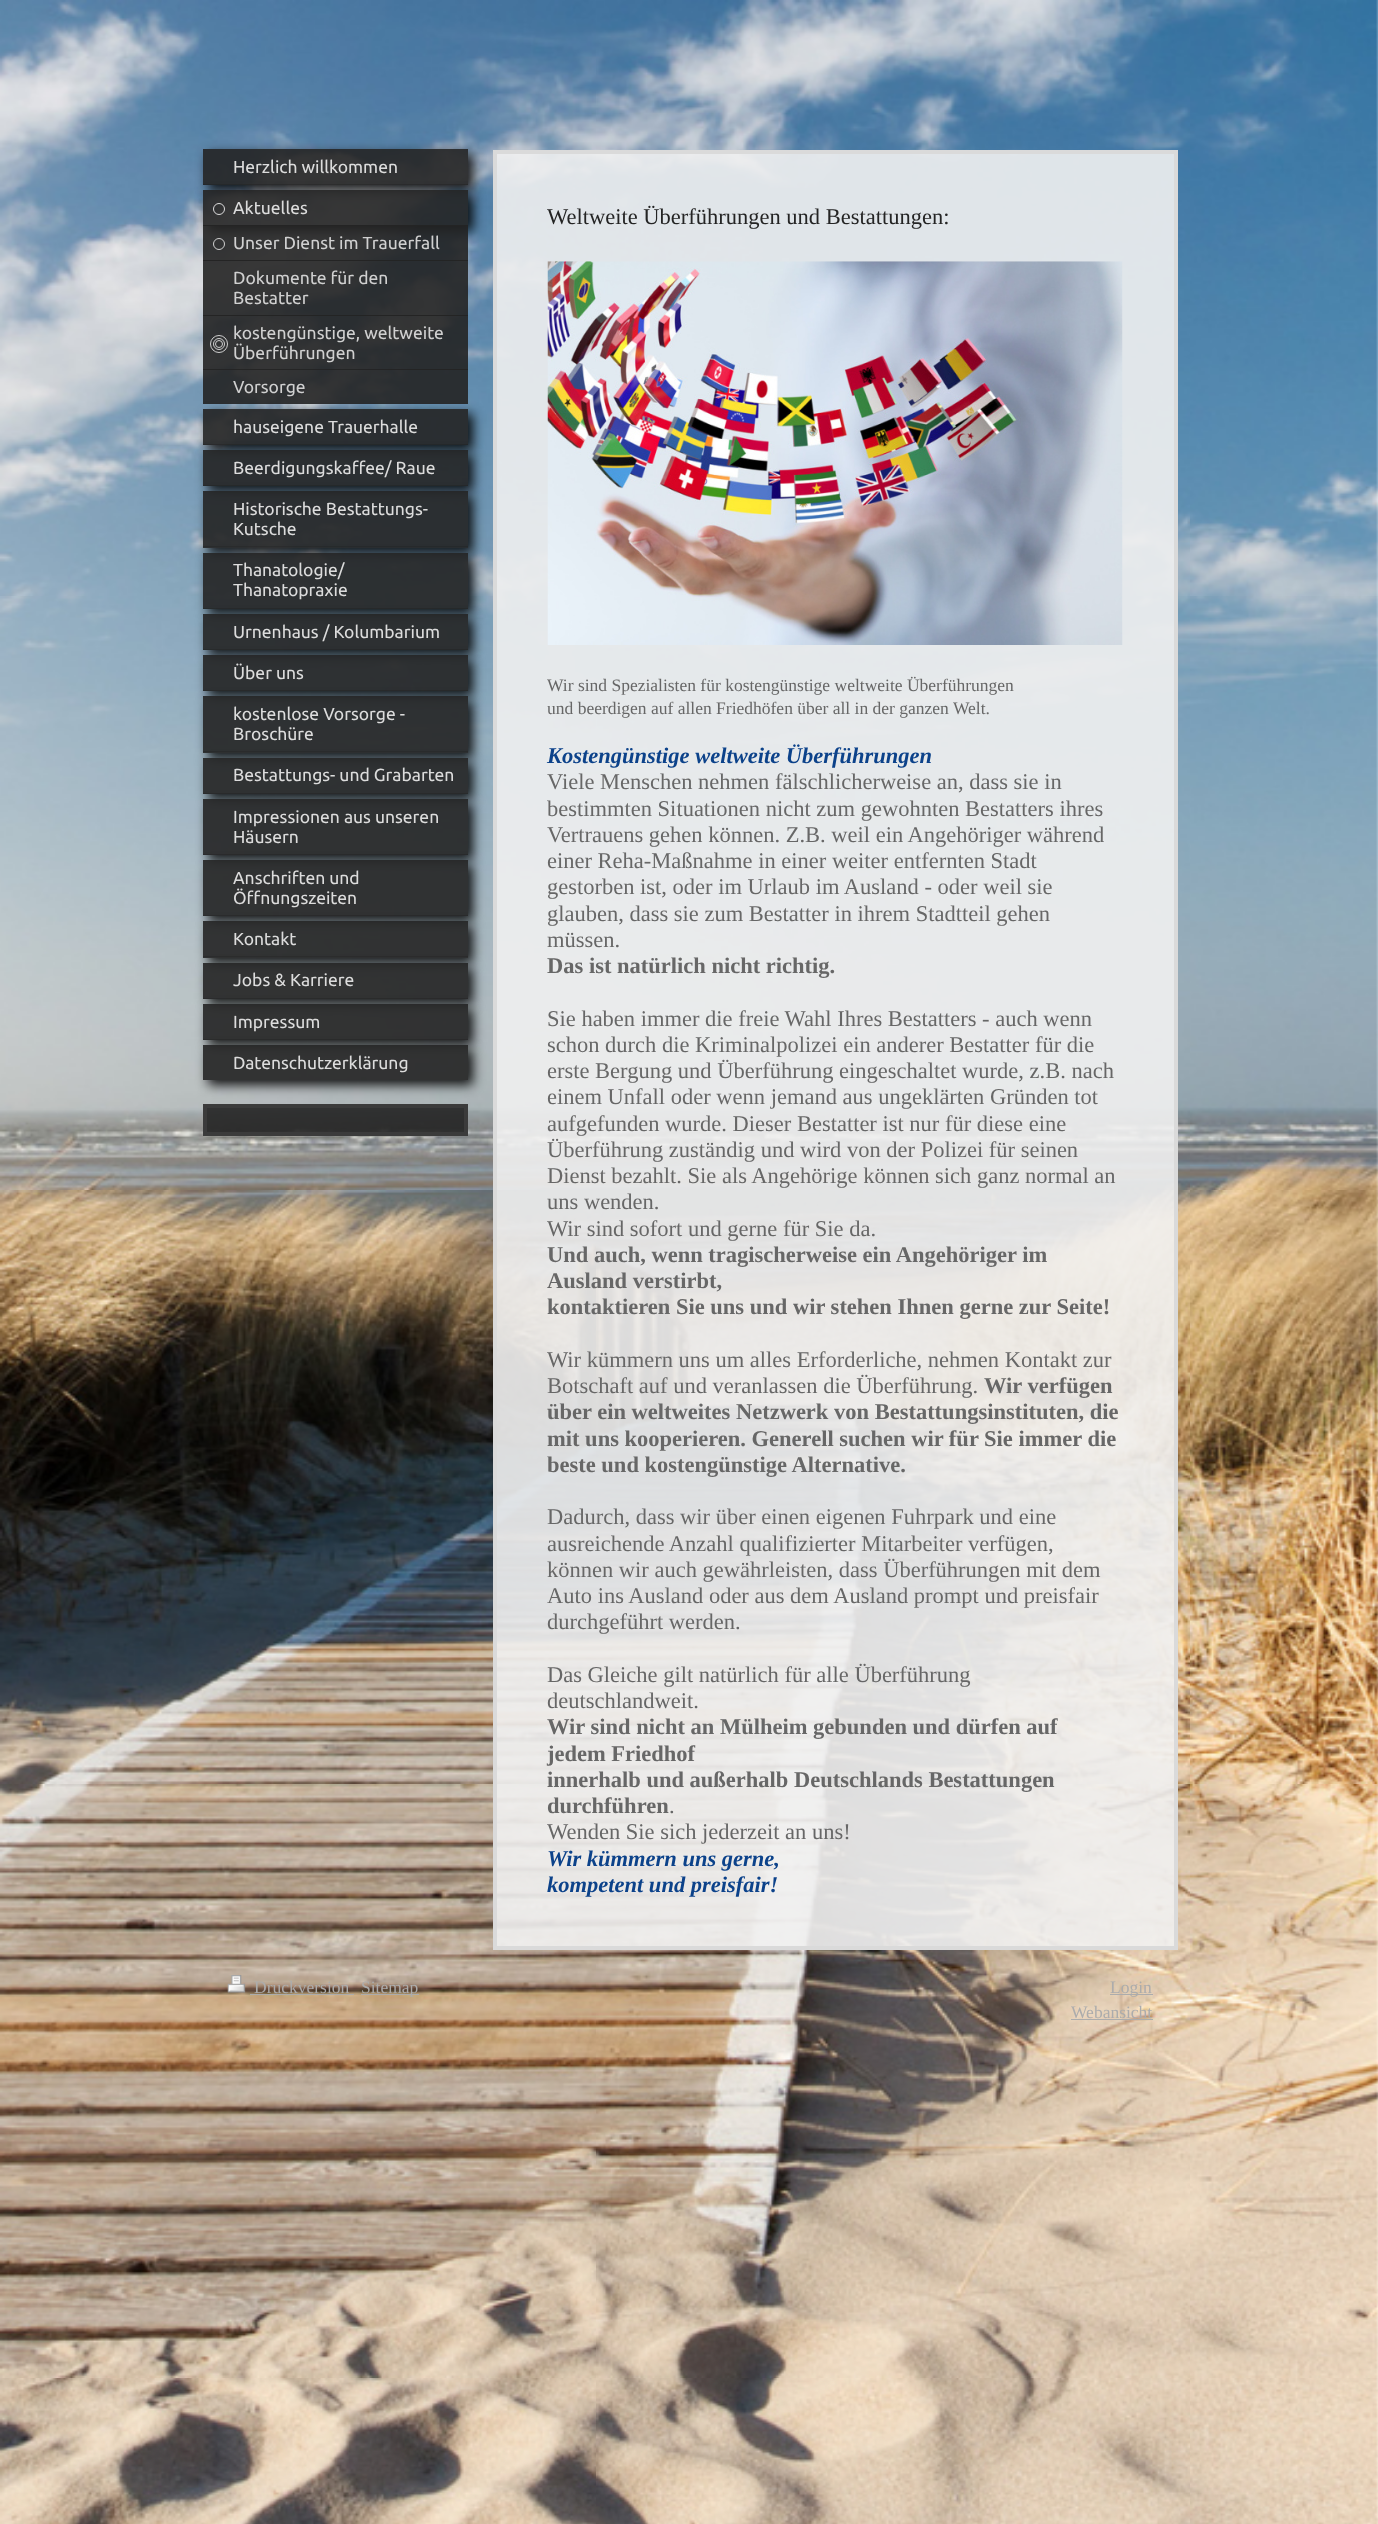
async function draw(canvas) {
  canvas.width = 1378
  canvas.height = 2524
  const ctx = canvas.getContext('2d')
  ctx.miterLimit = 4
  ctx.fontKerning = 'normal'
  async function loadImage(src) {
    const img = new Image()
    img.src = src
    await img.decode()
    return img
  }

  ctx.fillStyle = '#fff'
  ctx.fillRect(0, 0, 1378, 2524)
  ctx.drawImage(await loadImage('image0.png'), 0, 0, 1378, 2524)
  ctx.save()
  ctx.beginPath()
  ctx.moveTo(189, 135)
  ctx.lineTo(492, 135)
  ctx.lineTo(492, 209)
  ctx.lineTo(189, 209)
  ctx.closePath()
  ctx.moveTo(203, 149)
  ctx.lineTo(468, 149)
  ctx.lineTo(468, 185)
  ctx.lineTo(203, 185)
  ctx.closePath()
  ctx.clip('evenodd')
  ctx.fillStyle = '#000000e6'
  ctx.filter = 'blur(6px)'
  ctx.beginPath()
  ctx.rect(208, 154, 265, 36)
  ctx.fill()
  ctx.filter = 'none'
  ctx.restore()
  ctx.fillStyle = '#242424e6'
  ctx.fillRect(203, 149, 265, 36)
  ctx.fillStyle = '#0000001a'
  ctx.fillRect(203, 184, 265, 1)
  ctx.font = '17.5px Ubuntu'
  ctx.fillStyle = '#dcdcdc'
  ctx.fillText('Herzlich willkommen', 233, 173)
  ctx.save()
  ctx.beginPath()
  ctx.moveTo(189, 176)
  ctx.lineTo(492, 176)
  ctx.lineTo(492, 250)
  ctx.lineTo(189, 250)
  ctx.closePath()
  ctx.moveTo(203, 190)
  ctx.lineTo(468, 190)
  ctx.lineTo(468, 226)
  ctx.lineTo(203, 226)
  ctx.closePath()
  ctx.clip('evenodd')
  ctx.fillStyle = '#000000e6'
  ctx.filter = 'blur(6px)'
  ctx.beginPath()
  ctx.rect(208, 195, 265, 36)
  ctx.fill()
  ctx.filter = 'none'
  ctx.restore()
  ctx.fillStyle = '#242424e6'
  ctx.fillRect(203, 190, 265, 36)
  ctx.fillStyle = '#0000001a'
  ctx.fillRect(203, 225, 265, 1)
  ctx.beginPath()
  ctx.arc(219, 209, 5.5, 0, 2 * Math.PI)
  ctx.strokeStyle = '#dcdcdc'
  ctx.stroke()
  ctx.fillStyle = '#dcdcdc'
  ctx.fillText('Aktuelles', 233, 214)
  ctx.fillStyle = '#242424e6'
  ctx.fillRect(203, 225, 265, 36)
  ctx.fillStyle = '#0000001a'
  ctx.fillRect(203, 260, 265, 1)
  ctx.beginPath()
  ctx.arc(219, 244, 5.5, 0, 2 * Math.PI)
  ctx.strokeStyle = '#d0d0d0'
  ctx.stroke()
  ctx.fillStyle = '#d0d0d0'
  ctx.fillText('Unser Dienst im Trauerfall', 233, 249)
  ctx.fillStyle = '#242424e6'
  ctx.fillRect(203, 260, 265, 56)
  ctx.fillStyle = '#0000001a'
  ctx.fillRect(203, 315, 265, 1)
  ctx.fillStyle = '#d0d0d0'
  ctx.fillText('Dokumente für den', 233, 284)
  ctx.fillText('Bestatter', 233, 304)
  ctx.fillStyle = '#242424e6'
  ctx.fillRect(203, 315, 265, 55)
  ctx.beginPath()
  ctx.arc(219, 344, 8.5, 0, 2 * Math.PI)
  ctx.stroke()
  ctx.beginPath()
  ctx.arc(219, 344, 5.5, 0, 2 * Math.PI)
  ctx.stroke()
  ctx.fillStyle = '#d0d0d0'
  ctx.fillText('kostengünstige, weltweite', 233, 339)
  ctx.fillText('Überführungen', 233, 359)
  ctx.beginPath()
  ctx.arc(219, 344, 3.5, 0, 2 * Math.PI)
  ctx.stroke()
  ctx.fillStyle = '#242424e6'
  ctx.fillRect(203, 369, 265, 35)
  ctx.fillStyle = '#d0d0d0'
  ctx.fillText('Vorsorge', 233, 393)
  ctx.save()
  ctx.beginPath()
  ctx.moveTo(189, 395)
  ctx.lineTo(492, 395)
  ctx.lineTo(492, 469)
  ctx.lineTo(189, 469)
  ctx.closePath()
  ctx.moveTo(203, 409)
  ctx.lineTo(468, 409)
  ctx.lineTo(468, 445)
  ctx.lineTo(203, 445)
  ctx.closePath()
  ctx.clip('evenodd')
  ctx.fillStyle = '#000000e6'
  ctx.filter = 'blur(6px)'
  ctx.beginPath()
  ctx.rect(208, 414, 265, 36)
  ctx.fill()
  ctx.filter = 'none'
  ctx.restore()
  ctx.fillStyle = '#242424e6'
  ctx.fillRect(203, 409, 265, 36)
  ctx.fillStyle = '#0000001a'
  ctx.fillRect(203, 444, 265, 1)
  ctx.fillStyle = '#dcdcdc'
  ctx.fillText('hauseigene Trauerhalle', 233, 433)
  ctx.save()
  ctx.beginPath()
  ctx.moveTo(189, 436)
  ctx.lineTo(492, 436)
  ctx.lineTo(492, 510)
  ctx.lineTo(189, 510)
  ctx.closePath()
  ctx.moveTo(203, 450)
  ctx.lineTo(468, 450)
  ctx.lineTo(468, 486)
  ctx.lineTo(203, 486)
  ctx.closePath()
  ctx.clip('evenodd')
  ctx.fillStyle = '#000000e6'
  ctx.filter = 'blur(6px)'
  ctx.beginPath()
  ctx.rect(208, 455, 265, 36)
  ctx.fill()
  ctx.filter = 'none'
  ctx.restore()
  ctx.fillStyle = '#242424e6'
  ctx.fillRect(203, 450, 265, 36)
  ctx.fillStyle = '#0000001a'
  ctx.fillRect(203, 485, 265, 1)
  ctx.fillStyle = '#dcdcdc'
  ctx.fillText('Beerdigungskaffee/ Raue', 233, 474)
  ctx.save()
  ctx.beginPath()
  ctx.moveTo(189, 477)
  ctx.lineTo(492, 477)
  ctx.lineTo(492, 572)
  ctx.lineTo(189, 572)
  ctx.closePath()
  ctx.moveTo(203, 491)
  ctx.lineTo(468, 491)
  ctx.lineTo(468, 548)
  ctx.lineTo(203, 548)
  ctx.closePath()
  ctx.clip('evenodd')
  ctx.fillStyle = '#000000e6'
  ctx.filter = 'blur(6px)'
  ctx.beginPath()
  ctx.rect(208, 496, 265, 57)
  ctx.fill()
  ctx.filter = 'none'
  ctx.restore()
  ctx.fillStyle = '#242424e6'
  ctx.fillRect(203, 491, 265, 57)
  ctx.fillStyle = '#0000001a'
  ctx.fillRect(203, 546, 265, 1)
  ctx.fillStyle = '#dcdcdc'
  ctx.fillText('Historische Bestattungs-', 233, 515)
  ctx.fillText('Kutsche', 233, 535)
  ctx.save()
  ctx.beginPath()
  ctx.moveTo(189, 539)
  ctx.lineTo(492, 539)
  ctx.lineTo(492, 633)
  ctx.lineTo(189, 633)
  ctx.closePath()
  ctx.moveTo(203, 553)
  ctx.lineTo(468, 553)
  ctx.lineTo(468, 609)
  ctx.lineTo(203, 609)
  ctx.closePath()
  ctx.clip('evenodd')
  ctx.fillStyle = '#000000e6'
  ctx.filter = 'blur(6px)'
  ctx.beginPath()
  ctx.rect(208, 558, 265, 56)
  ctx.fill()
  ctx.filter = 'none'
  ctx.restore()
  ctx.fillStyle = '#242424e6'
  ctx.fillRect(203, 553, 265, 56)
  ctx.fillStyle = '#0000001a'
  ctx.fillRect(203, 608, 265, 1)
  ctx.fillStyle = '#dcdcdc'
  ctx.fillText('Thanatologie/', 233, 576)
  ctx.fillText('Thanatopraxie', 233, 596)
  ctx.save()
  ctx.beginPath()
  ctx.moveTo(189, 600)
  ctx.lineTo(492, 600)
  ctx.lineTo(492, 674)
  ctx.lineTo(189, 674)
  ctx.closePath()
  ctx.moveTo(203, 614)
  ctx.lineTo(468, 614)
  ctx.lineTo(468, 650)
  ctx.lineTo(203, 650)
  ctx.closePath()
  ctx.clip('evenodd')
  ctx.fillStyle = '#000000e6'
  ctx.filter = 'blur(6px)'
  ctx.beginPath()
  ctx.rect(208, 619, 265, 36)
  ctx.fill()
  ctx.filter = 'none'
  ctx.restore()
  ctx.fillStyle = '#242424e6'
  ctx.fillRect(203, 614, 265, 36)
  ctx.fillStyle = '#0000001a'
  ctx.fillRect(203, 649, 265, 1)
  ctx.fillStyle = '#dcdcdc'
  ctx.fillText('Urnenhaus / Kolumbarium', 233, 638)
  ctx.save()
  ctx.beginPath()
  ctx.moveTo(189, 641)
  ctx.lineTo(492, 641)
  ctx.lineTo(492, 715)
  ctx.lineTo(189, 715)
  ctx.closePath()
  ctx.moveTo(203, 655)
  ctx.lineTo(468, 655)
  ctx.lineTo(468, 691)
  ctx.lineTo(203, 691)
  ctx.closePath()
  ctx.clip('evenodd')
  ctx.fillStyle = '#000000e6'
  ctx.filter = 'blur(6px)'
  ctx.beginPath()
  ctx.rect(208, 660, 265, 36)
  ctx.fill()
  ctx.filter = 'none'
  ctx.restore()
  ctx.fillStyle = '#242424e6'
  ctx.fillRect(203, 655, 265, 36)
  ctx.fillStyle = '#0000001a'
  ctx.fillRect(203, 690, 265, 1)
  ctx.fillStyle = '#dcdcdc'
  ctx.fillText('Über uns', 233, 679)
  ctx.save()
  ctx.beginPath()
  ctx.moveTo(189, 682)
  ctx.lineTo(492, 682)
  ctx.lineTo(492, 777)
  ctx.lineTo(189, 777)
  ctx.closePath()
  ctx.moveTo(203, 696)
  ctx.lineTo(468, 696)
  ctx.lineTo(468, 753)
  ctx.lineTo(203, 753)
  ctx.closePath()
  ctx.clip('evenodd')
  ctx.fillStyle = '#000000e6'
  ctx.filter = 'blur(6px)'
  ctx.beginPath()
  ctx.rect(208, 701, 265, 57)
  ctx.fill()
  ctx.filter = 'none'
  ctx.restore()
  ctx.fillStyle = '#242424e6'
  ctx.fillRect(203, 696, 265, 57)
  ctx.fillStyle = '#0000001a'
  ctx.fillRect(203, 751, 265, 1)
  ctx.fillStyle = '#dcdcdc'
  ctx.fillText('kostenlose Vorsorge -', 233, 720)
  ctx.fillText('Broschüre', 233, 740)
  ctx.save()
  ctx.beginPath()
  ctx.moveTo(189, 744)
  ctx.lineTo(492, 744)
  ctx.lineTo(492, 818)
  ctx.lineTo(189, 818)
  ctx.closePath()
  ctx.moveTo(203, 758)
  ctx.lineTo(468, 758)
  ctx.lineTo(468, 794)
  ctx.lineTo(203, 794)
  ctx.closePath()
  ctx.clip('evenodd')
  ctx.fillStyle = '#000000e6'
  ctx.filter = 'blur(6px)'
  ctx.beginPath()
  ctx.rect(208, 763, 265, 36)
  ctx.fill()
  ctx.filter = 'none'
  ctx.restore()
  ctx.fillStyle = '#242424e6'
  ctx.fillRect(203, 758, 265, 36)
  ctx.fillStyle = '#0000001a'
  ctx.fillRect(203, 793, 265, 1)
  ctx.fillStyle = '#dcdcdc'
  ctx.fillText('Bestattungs- und Grabarten', 233, 781)
  ctx.save()
  ctx.beginPath()
  ctx.moveTo(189, 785)
  ctx.lineTo(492, 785)
  ctx.lineTo(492, 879)
  ctx.lineTo(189, 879)
  ctx.closePath()
  ctx.moveTo(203, 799)
  ctx.lineTo(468, 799)
  ctx.lineTo(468, 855)
  ctx.lineTo(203, 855)
  ctx.closePath()
  ctx.clip('evenodd')
  ctx.fillStyle = '#000000e6'
  ctx.filter = 'blur(6px)'
  ctx.beginPath()
  ctx.rect(208, 804, 265, 56)
  ctx.fill()
  ctx.filter = 'none'
  ctx.restore()
  ctx.fillStyle = '#242424e6'
  ctx.fillRect(203, 799, 265, 56)
  ctx.fillStyle = '#0000001a'
  ctx.fillRect(203, 854, 265, 1)
  ctx.fillStyle = '#dcdcdc'
  ctx.fillText('Impressionen aus unseren', 233, 823)
  ctx.fillText('Häusern', 233, 843)
  ctx.save()
  ctx.beginPath()
  ctx.moveTo(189, 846)
  ctx.lineTo(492, 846)
  ctx.lineTo(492, 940)
  ctx.lineTo(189, 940)
  ctx.closePath()
  ctx.moveTo(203, 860)
  ctx.lineTo(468, 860)
  ctx.lineTo(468, 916)
  ctx.lineTo(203, 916)
  ctx.closePath()
  ctx.clip('evenodd')
  ctx.fillStyle = '#000000e6'
  ctx.filter = 'blur(6px)'
  ctx.beginPath()
  ctx.rect(208, 865, 265, 56)
  ctx.fill()
  ctx.filter = 'none'
  ctx.restore()
  ctx.fillStyle = '#242424e6'
  ctx.fillRect(203, 860, 265, 56)
  ctx.fillStyle = '#0000001a'
  ctx.fillRect(203, 915, 265, 1)
  ctx.fillStyle = '#dcdcdc'
  ctx.fillText('Anschriften und', 233, 884)
  ctx.fillText('Öffnungszeiten', 233, 904)
  ctx.save()
  ctx.beginPath()
  ctx.moveTo(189, 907)
  ctx.lineTo(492, 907)
  ctx.lineTo(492, 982)
  ctx.lineTo(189, 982)
  ctx.closePath()
  ctx.moveTo(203, 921)
  ctx.lineTo(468, 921)
  ctx.lineTo(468, 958)
  ctx.lineTo(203, 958)
  ctx.closePath()
  ctx.clip('evenodd')
  ctx.fillStyle = '#000000e6'
  ctx.filter = 'blur(6px)'
  ctx.beginPath()
  ctx.rect(208, 926, 265, 37)
  ctx.fill()
  ctx.filter = 'none'
  ctx.restore()
  ctx.fillStyle = '#242424e6'
  ctx.fillRect(203, 921, 265, 37)
  ctx.fillStyle = '#0000001a'
  ctx.fillRect(203, 956, 265, 1)
  ctx.fillStyle = '#dcdcdc'
  ctx.fillText('Kontakt', 233, 945)
  ctx.save()
  ctx.beginPath()
  ctx.moveTo(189, 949)
  ctx.lineTo(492, 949)
  ctx.lineTo(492, 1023)
  ctx.lineTo(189, 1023)
  ctx.closePath()
  ctx.moveTo(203, 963)
  ctx.lineTo(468, 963)
  ctx.lineTo(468, 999)
  ctx.lineTo(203, 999)
  ctx.closePath()
  ctx.clip('evenodd')
  ctx.fillStyle = '#000000e6'
  ctx.filter = 'blur(6px)'
  ctx.beginPath()
  ctx.rect(208, 968, 265, 36)
  ctx.fill()
  ctx.filter = 'none'
  ctx.restore()
  ctx.fillStyle = '#242424e6'
  ctx.fillRect(203, 963, 265, 36)
  ctx.fillStyle = '#0000001a'
  ctx.fillRect(203, 998, 265, 1)
  ctx.fillStyle = '#dcdcdc'
  ctx.fillText('Jobs & Karriere', 233, 986)
  ctx.save()
  ctx.beginPath()
  ctx.moveTo(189, 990)
  ctx.lineTo(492, 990)
  ctx.lineTo(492, 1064)
  ctx.lineTo(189, 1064)
  ctx.closePath()
  ctx.moveTo(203, 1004)
  ctx.lineTo(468, 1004)
  ctx.lineTo(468, 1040)
  ctx.lineTo(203, 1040)
  ctx.closePath()
  ctx.clip('evenodd')
  ctx.fillStyle = '#000000e6'
  ctx.filter = 'blur(6px)'
  ctx.beginPath()
  ctx.rect(208, 1009, 265, 36)
  ctx.fill()
  ctx.filter = 'none'
  ctx.restore()
  ctx.fillStyle = '#242424e6'
  ctx.fillRect(203, 1004, 265, 36)
  ctx.fillStyle = '#0000001a'
  ctx.fillRect(203, 1039, 265, 1)
  ctx.fillStyle = '#dcdcdc'
  ctx.fillText('Impressum', 233, 1028)
  ctx.save()
  ctx.beginPath()
  ctx.moveTo(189, 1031)
  ctx.lineTo(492, 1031)
  ctx.lineTo(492, 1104)
  ctx.lineTo(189, 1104)
  ctx.closePath()
  ctx.moveTo(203, 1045)
  ctx.lineTo(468, 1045)
  ctx.lineTo(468, 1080)
  ctx.lineTo(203, 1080)
  ctx.closePath()
  ctx.clip('evenodd')
  ctx.fillStyle = '#000000e6'
  ctx.filter = 'blur(6px)'
  ctx.beginPath()
  ctx.rect(208, 1050, 265, 35)
  ctx.fill()
  ctx.filter = 'none'
  ctx.restore()
  ctx.fillStyle = '#242424e6'
  ctx.fillRect(203, 1045, 265, 35)
  ctx.fillStyle = '#dcdcdc'
  ctx.fillText('Datenschutzerklärung', 233, 1069)
  ctx.fillStyle = '#242424e6'
  ctx.beginPath()
  ctx.rect(205, 1106, 261, 28)
  ctx.fill()
  ctx.strokeStyle = '#3b3b3b'
  ctx.lineWidth = 4
  ctx.stroke()
  ctx.fillStyle = '#f1f1f1e6'
  ctx.beginPath()
  ctx.rect(495, 152, 681, 1796)
  ctx.fill()
  ctx.strokeStyle = '#dadada'
  ctx.stroke()
  ctx.font = '22.5px Liberation Serif'
  ctx.fillStyle = '#242424'
  ctx.fillText('Weltweite Überführungen und Bestattungen:', 547, 224)
  ctx.drawImage(await loadImage('image1.png'), 547, 261, 576, 384)
  ctx.font = '17.5px Liberation Serif'
  ctx.fillStyle = '#676767'
  ctx.fillText('Wir sind Spezialisten für kostengünstige weltweite Überführungen', 547, 691)
  ctx.fillText('und beerdigen auf allen Friedhöfen über all in der ganzen Welt.', 547, 714)
  ctx.font = 'italic bold 22.5px Liberation Serif'
  ctx.fillStyle = '#0c428a'
  ctx.fillText('Kostengünstige weltweite Überführungen', 547, 763)
  ctx.font = '22.5px Liberation Serif'
  ctx.fillStyle = '#676767'
  ctx.fillText('Viele Menschen nehmen fälschlicherweise an, dass sie in', 547, 789)
  ctx.fillText('bestimmten Situationen nicht zum gewohnten Bestatters ihres', 547, 816)
  ctx.fillText('Vertrauens gehen können. Z.B. weil ein Angehöriger während', 547, 842)
  ctx.fillText('einer Reha-Maßnahme in einer weiter entfernten Stadt', 547, 868)
  ctx.fillText('gestorben ist, oder im Urlaub im Ausland - oder weil sie', 547, 894)
  ctx.fillText('glauben, dass sie zum Bestatter in ihrem Stadtteil gehen', 547, 921)
  ctx.fillText('müssen.', 547, 947)
  ctx.font = 'bold 22.5px Liberation Serif'
  ctx.fillText('Das ist natürlich nicht richtig.', 547, 973)
  ctx.font = '22.5px Liberation Serif'
  ctx.fillText('Sie haben immer die freie Wahl Ihres Bestatters - auch wenn', 547, 1026)
  ctx.fillText('schon durch die Kriminalpolizei ein anderer Bestatter für die', 547, 1052)
  ctx.fillText('erste Bergung und Überführung eingeschaltet wurde, z.B. nach', 547, 1078)
  ctx.fillText('einem Unfall oder wenn jemand aus ungeklärten Gründen tot', 547, 1104)
  ctx.fillText('aufgefunden wurde. Dieser Bestatter ist nur für diese eine', 547, 1131)
  ctx.fillText('Überführung zuständig und wird von der Polizei für seinen', 547, 1157)
  ctx.fillText('Dienst bezahlt. Sie als Angehörige können sich ganz normal an', 547, 1183)
  ctx.fillText('uns wenden.', 547, 1209)
  ctx.fillText('Wir sind sofort und gerne für Sie da.', 547, 1236)
  ctx.font = 'bold 22.5px Liberation Serif'
  ctx.fillText('Und auch, wenn tragischerweise ein Angehöriger im', 547, 1262)
  ctx.fillText('Ausland verstirbt,', 547, 1288)
  ctx.fillText('kontaktieren Sie uns und wir stehen Ihnen gerne zur Seite!', 547, 1314)
  ctx.font = '22.5px Liberation Serif'
  ctx.fillText('Wir kümmern uns um alles Erforderliche, nehmen Kontakt zur', 547, 1367)
  ctx.fillText('Botschaft auf und veranlassen die Überführung.', 547, 1393)
  ctx.font = 'bold 22.5px Liberation Serif'
  ctx.fillText('Wir verfügen', 984, 1393)
  ctx.fillText('über ein weltweites Netzwerk von Bestattungsinstituten, die', 547, 1419)
  ctx.fillText('mit uns kooperieren. Generell suchen wir für Sie immer die', 547, 1446)
  ctx.fillText('beste und kostengünstige Alternative.', 547, 1472)
  ctx.font = '22.5px Liberation Serif'
  ctx.fillText('Dadurch, dass wir über einen eigenen Fuhrpark und eine', 547, 1524)
  ctx.fillText('ausreichende Anzahl qualifizierter Mitarbeiter verfügen,', 547, 1551)
  ctx.fillText('können wir auch gewährleisten, dass Überführungen mit dem', 547, 1577)
  ctx.fillText('Auto ins Ausland oder aus dem Ausland prompt und preisfair', 547, 1603)
  ctx.fillText('durchgeführt werden.', 547, 1629)
  ctx.fillText('Das Gleiche gilt natürlich für alle Überführung', 547, 1682)
  ctx.fillText('deutschlandweit.', 547, 1708)
  ctx.font = 'bold 22.5px Liberation Serif'
  ctx.fillText('Wir sind nicht an Mülheim gebunden und dürfen auf', 547, 1734)
  ctx.fillText('jedem Friedhof', 547, 1761)
  ctx.fillText('innerhalb und außerhalb Deutschlands Bestattungen', 547, 1787)
  ctx.fillText('durchführen', 547, 1813)
  ctx.font = '22.5px Liberation Serif'
  ctx.fillText('.', 669, 1813)
  ctx.fillText('Wenden Sie sich jederzeit an uns!', 547, 1839)
  ctx.font = 'italic bold 22.5px Liberation Serif'
  ctx.fillStyle = '#0c428a'
  ctx.fillText('Wir kümmern uns gerne,', 547, 1866)
  ctx.fillText('kompetent und preisfair!', 547, 1892)
  ctx.drawImage(await loadImage('image2.png'), 227, 1975, 19, 18)
  ctx.font = '17.5px Liberation Serif'
  ctx.fillStyle = '#acacac'
  ctx.fillText('Druckversion', 254, 1993)
  ctx.fillRect(250, 1994, 104, 1)
  ctx.fillRect(361, 1994, 58, 1)
  ctx.fillText('Sitemap', 361, 1993)
  ctx.fillRect(1110, 1994, 43, 1)
  ctx.fillText('Login', 1110, 1993)
  ctx.fillText('Webansicht', 1071, 2018)
  ctx.fillRect(1071, 2019, 82, 1)
}

draw(document.querySelector('canvas'))
